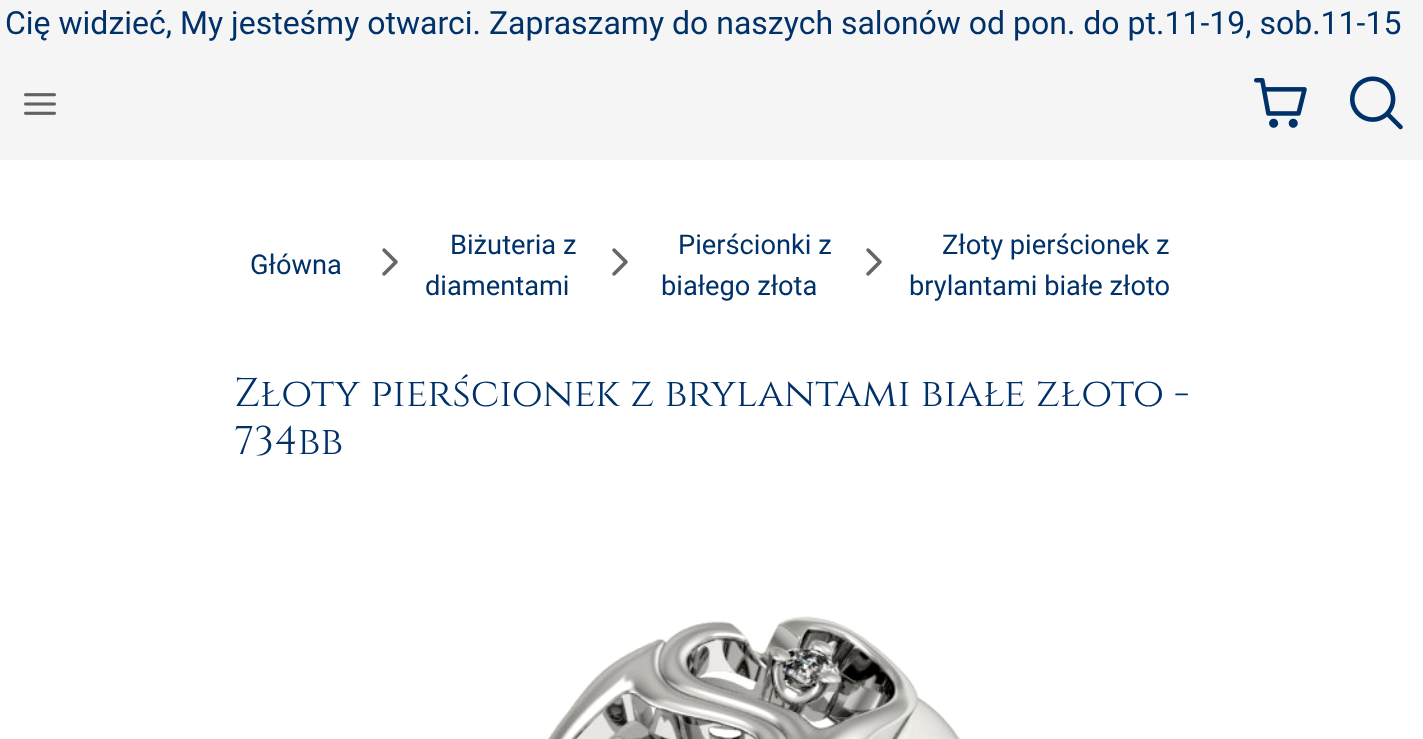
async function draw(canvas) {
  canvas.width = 1423
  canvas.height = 739
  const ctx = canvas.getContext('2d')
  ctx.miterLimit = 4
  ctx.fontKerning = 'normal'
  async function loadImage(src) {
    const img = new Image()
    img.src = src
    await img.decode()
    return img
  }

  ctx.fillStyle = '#fff'
  ctx.fillRect(0, 0, 1423, 739)
  ctx.fillStyle = '#f5f5f6'
  ctx.fillRect(0, 0, 1423, 160)
  ctx.drawImage(await loadImage('image0.png'), 24, 93, 32, 22)
  ctx.drawImage(await loadImage('image1.png'), 1254, 78, 53, 50)
  ctx.drawImage(await loadImage('image2.png'), 1350, 76, 53, 54)
  ctx.font = '32px Roboto'
  ctx.fillStyle = '#003269'
  ctx.fillText('Cię widzieć, My jesteśmy otwarci. Zapraszamy do naszych salonów od pon. do pt.11-19, sob.11-15', 5, 34)
  ctx.font = '27.25px Roboto'
  ctx.fillText('Główna', 250, 274)
  ctx.drawImage(await loadImage('image3.png'), 382, 248, 16, 28)
  ctx.fillText('Biżuteria z', 450, 254)
  ctx.fillText('diamentami', 425, 295)
  ctx.drawImage(await loadImage('image3.png'), 612, 248, 16, 28)
  ctx.fillText('Pierścionki z', 678, 254)
  ctx.fillText('białego złota', 661, 295)
  ctx.drawImage(await loadImage('image3.png'), 866, 248, 16, 28)
  ctx.fillText('Złoty pierścionek z', 942, 254)
  ctx.fillText('brylantami białe złoto', 909, 295)
  ctx.font = '40px Cinzel'
  ctx.fillText('Złoty pierścionek z brylantami białe złoto -', 234, 406)
  ctx.fillText('734bb', 234, 454)
  ctx.drawImage(await loadImage('image4.png'), 438, 616, 546, 123)
}

draw(document.querySelector('canvas'))
